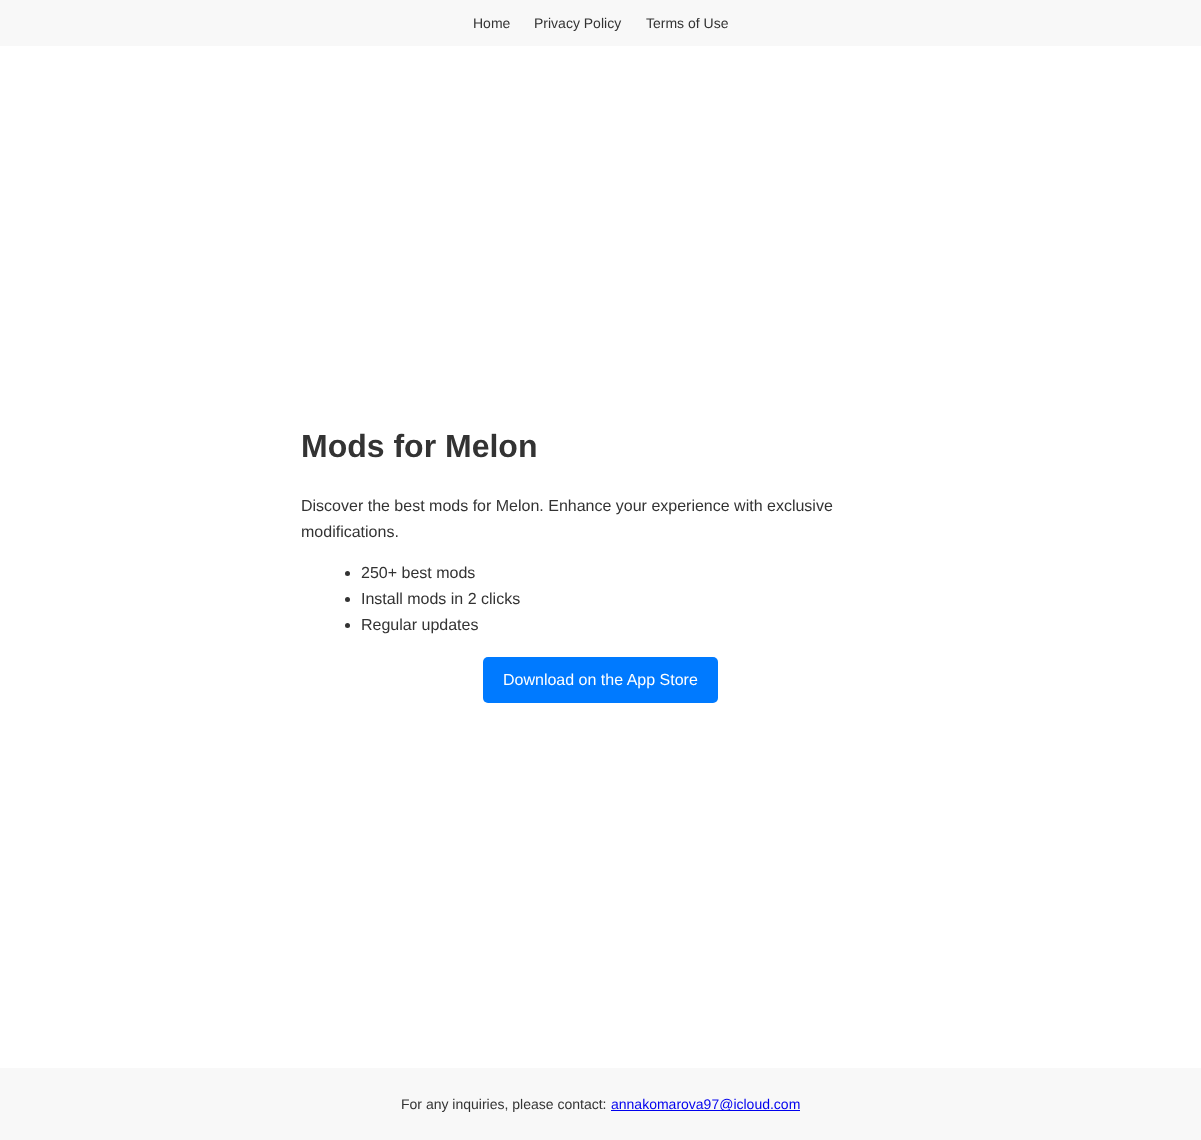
async function draw(canvas) {
  canvas.width = 1201
  canvas.height = 1140
  const ctx = canvas.getContext('2d')
  ctx.miterLimit = 4
  ctx.fontKerning = 'normal'

  ctx.fillStyle = '#fff'
  ctx.fillRect(0, 0, 1201, 1140)
  ctx.fillStyle = '#f8f8f8'
  ctx.fillRect(0, 0, 1201, 46)
  ctx.font = '14px Liberation Sans'
  ctx.fillStyle = '#333'
  ctx.fillText('Home', 473, 28)
  ctx.fillText('Privacy Policy', 534, 28)
  ctx.fillText('Terms of Use', 646, 28)
  ctx.font = 'bold 32px Liberation Sans'
  ctx.fillText('Mods for Melon', 301, 457)
  ctx.font = '16px Liberation Sans'
  ctx.fillText('Discover the best mods for Melon. Enhance your experience with exclusive', 301, 511)
  ctx.fillText('modifications.', 301, 537)
  ctx.beginPath()
  ctx.arc(347.5, 573.5, 2.5, 0, 2 * Math.PI)
  ctx.fill()
  ctx.fillText('250+ best mods', 361, 578)
  ctx.beginPath()
  ctx.arc(347.5, 599.5, 2.5, 0, 2 * Math.PI)
  ctx.fill()
  ctx.fillText('Install mods in 2 clicks', 361, 604)
  ctx.beginPath()
  ctx.arc(347.5, 625.5, 2.5, 0, 2 * Math.PI)
  ctx.fill()
  ctx.fillText('Regular updates', 361, 630)
  ctx.fillStyle = '#007aff'
  ctx.beginPath()
  ctx.roundRect(483, 657, 235, 46, 5)
  ctx.fill()
  ctx.fillStyle = '#fff'
  ctx.fillText('Download on the App Store', 503, 685)
  ctx.fillStyle = '#f8f8f8'
  ctx.fillRect(0, 1068, 1201, 72)
  ctx.font = '14px Liberation Sans'
  ctx.fillStyle = '#333'
  ctx.fillText('For any inquiries, please contact:', 401, 1109)
  ctx.fillStyle = '#00e'
  ctx.fillRect(611, 1110, 189, 1)
  ctx.fillText('annakomarova97@icloud.com', 611, 1109)
}

draw(document.querySelector('canvas'))
